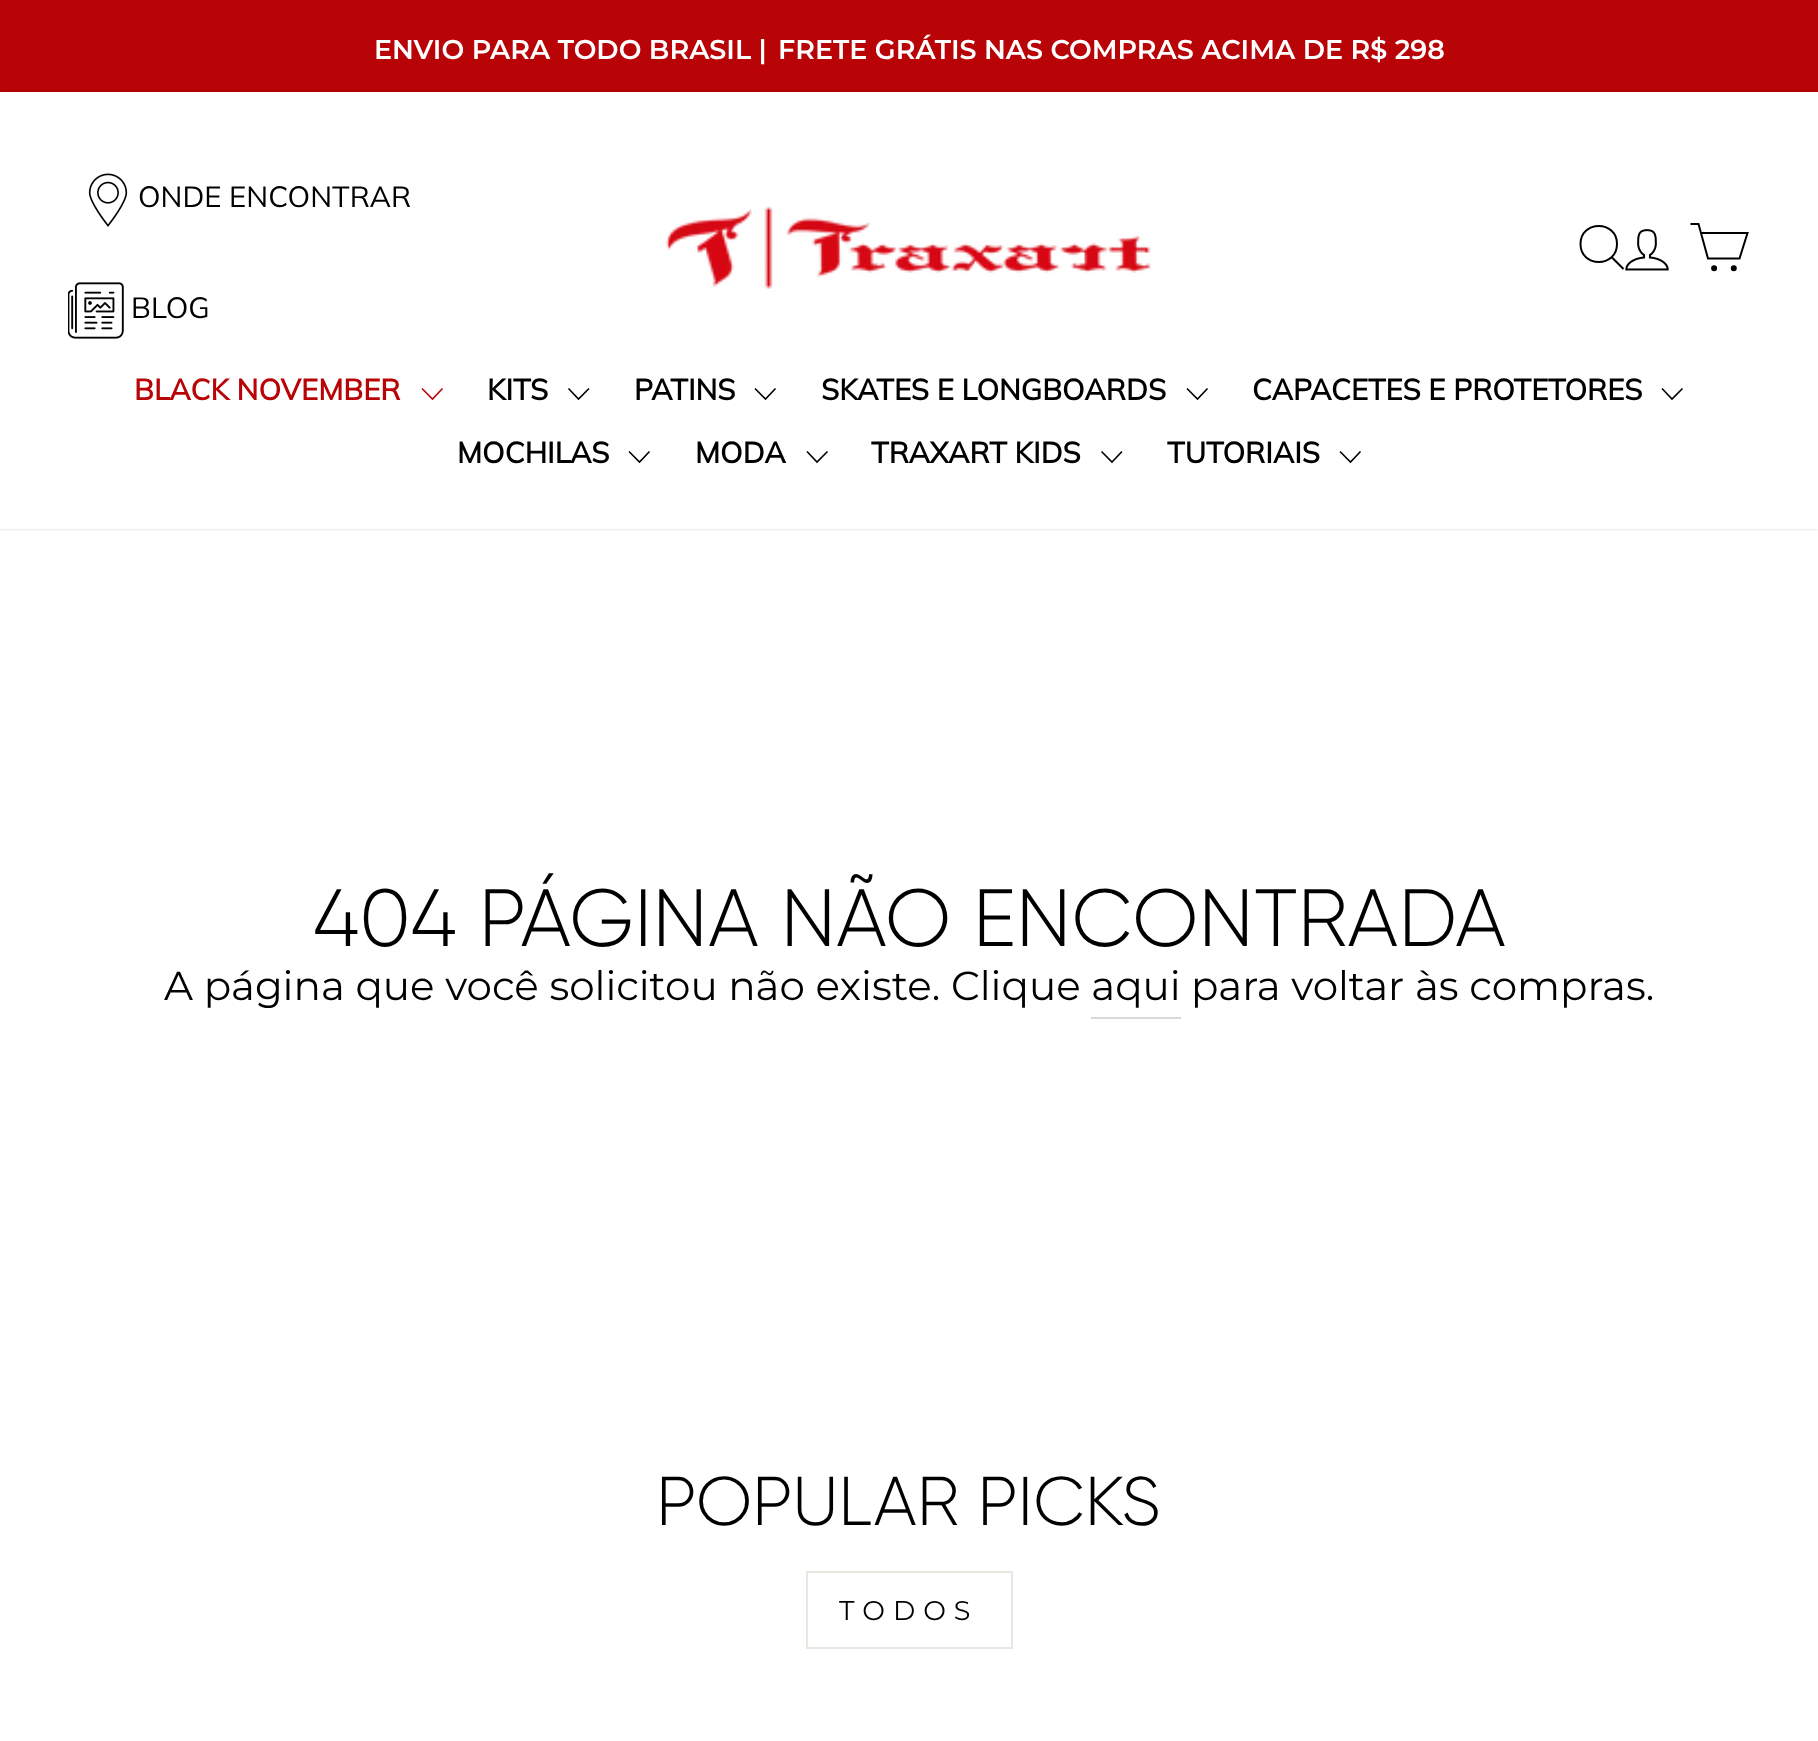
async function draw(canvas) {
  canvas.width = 1818
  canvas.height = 1741
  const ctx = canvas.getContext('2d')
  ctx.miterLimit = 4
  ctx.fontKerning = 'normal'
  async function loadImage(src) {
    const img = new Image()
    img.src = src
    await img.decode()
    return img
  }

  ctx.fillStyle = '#fff'
  ctx.fillRect(0, 0, 1818, 1741)
  ctx.fillStyle = '#b80407'
  ctx.fillRect(0, 0, 1818, 92)
  ctx.font = '600 27px Montserrat'
  ctx.fillStyle = '#fff'
  ctx.fillText('ENVIO PARA TODO BRASIL |', 374, 59)
  ctx.fillText('FRETE GRÁTIS NAS COMPRAS ACIMA DE R$ 298', 778, 59)
  ctx.fillStyle = '#00000033'
  ctx.filter = 'blur(1px)'
  ctx.beginPath()
  ctx.rect(0, 92, 1818, 437)
  ctx.fill()
  ctx.filter = 'none'
  ctx.fillStyle = '#fff'
  ctx.fillRect(0, 92, 1818, 437)
  ctx.drawImage(await loadImage('image0.png'), 88, 173, 40, 54)
  ctx.font = '29.25px Muli'
  ctx.fillStyle = '#000'
  ctx.fillText('ONDE ENCONTRAR', 138, 207)
  ctx.drawImage(await loadImage('image1.png'), 68, 282, 56, 57)
  ctx.fillText('BLOG', 131, 318)
  ctx.drawImage(await loadImage('image2.png'), 665, 206, 486, 83)
  ctx.beginPath()
  ctx.moveTo(1617, 244)
  ctx.bezierCurveTo(1617, 268, 1580.5, 268, 1580.5, 244)
  ctx.bezierCurveTo(1580.5, 220, 1617, 220, 1617, 244)
  ctx.closePath()
  ctx.moveTo(1623.5, 269)
  ctx.lineTo(1612, 257.5)
  ctx.strokeStyle = '#000'
  ctx.lineWidth = 2
  ctx.stroke()
  ctx.drawImage(await loadImage('image3.png'), 1625, 229, 44, 42)
  ctx.beginPath()
  ctx.moveTo(1701.5, 233)
  ctx.lineTo(1747.5, 233)
  ctx.lineTo(1739.5, 258.5)
  ctx.lineTo(1708, 258.5)
  ctx.lineTo(1698.5, 224)
  ctx.lineTo(1690.5, 224)
  ctx.stroke()
  ctx.beginPath()
  ctx.arc(1714.1, 268.2, 2, 0, 2 * Math.PI)
  ctx.fill()
  ctx.stroke()
  ctx.beginPath()
  ctx.arc(1733.8, 268.2, 2, 0, 2 * Math.PI)
  ctx.fill()
  ctx.stroke()
  ctx.font = 'bold 29.25px Muli'
  ctx.fillStyle = '#b80407'
  ctx.fillText('BLACK NOVEMBER', 134, 400)
  ctx.beginPath()
  ctx.moveTo(422, 388.5)
  ctx.lineTo(432.5, 399)
  ctx.lineTo(442.5, 388.5)
  ctx.strokeStyle = '#b80407'
  ctx.lineWidth = 1.6
  ctx.stroke()
  ctx.fillStyle = '#000'
  ctx.fillText('KITS', 487, 400)
  ctx.beginPath()
  ctx.moveTo(568.5, 388.5)
  ctx.lineTo(578.5, 399)
  ctx.lineTo(589, 388.5)
  ctx.strokeStyle = '#000'
  ctx.stroke()
  ctx.fillText('PATINS', 634, 400)
  ctx.beginPath()
  ctx.moveTo(755, 388.5)
  ctx.lineTo(765.5, 399)
  ctx.lineTo(775.5, 388.5)
  ctx.stroke()
  ctx.fillText('SKATES E LONGBOARDS', 821, 400)
  ctx.beginPath()
  ctx.moveTo(1187, 388.5)
  ctx.lineTo(1197.5, 399)
  ctx.lineTo(1207.5, 388.5)
  ctx.stroke()
  ctx.fillText('CAPACETES E PROTETORES', 1252, 400)
  ctx.beginPath()
  ctx.moveTo(1662, 388.5)
  ctx.lineTo(1672, 399)
  ctx.lineTo(1682.5, 388.5)
  ctx.stroke()
  ctx.fillText('MOCHILAS', 457, 463)
  ctx.beginPath()
  ctx.moveTo(629, 451.5)
  ctx.lineTo(639.5, 462)
  ctx.lineTo(649.5, 451.5)
  ctx.stroke()
  ctx.fillText('MODA', 695, 463)
  ctx.beginPath()
  ctx.moveTo(807, 451.5)
  ctx.lineTo(817, 462)
  ctx.lineTo(827.5, 451.5)
  ctx.stroke()
  ctx.fillText('TRAXART KIDS', 871, 463)
  ctx.beginPath()
  ctx.moveTo(1101.5, 451.5)
  ctx.lineTo(1112, 462)
  ctx.lineTo(1122, 451.5)
  ctx.stroke()
  ctx.fillText('TUTORIAIS', 1167, 463)
  ctx.beginPath()
  ctx.moveTo(1340, 451.5)
  ctx.lineTo(1350.5, 462)
  ctx.lineTo(1360.5, 451.5)
  ctx.stroke()
  ctx.font = '300 81px Gilroy'
  ctx.fillText('404 PÁGINA NÃO ENCONTRADA', 313, 946)
  ctx.font = '40.5px Montserrat'
  ctx.fillText('A página que você solicitou não existe. Clique aqui', 164, 1000)
  ctx.fillText('para voltar às compras.', 1191, 1000)
  ctx.fillStyle = '#d9d9d9'
  ctx.fillRect(1091, 1017, 90, 2)
  ctx.font = '300 68.75px Gilroy'
  ctx.fillStyle = '#000'
  ctx.fillText('POPULAR PICKS', 656, 1525)
  ctx.strokeStyle = '#e8e8e1'
  ctx.lineWidth = 2
  ctx.strokeRect(807, 1572, 205, 76)
  ctx.letterSpacing = '8px'
  ctx.font = '27px Montserrat'
  ctx.fillText('TODOS', 839, 1620)
}

draw(document.querySelector('canvas'))
